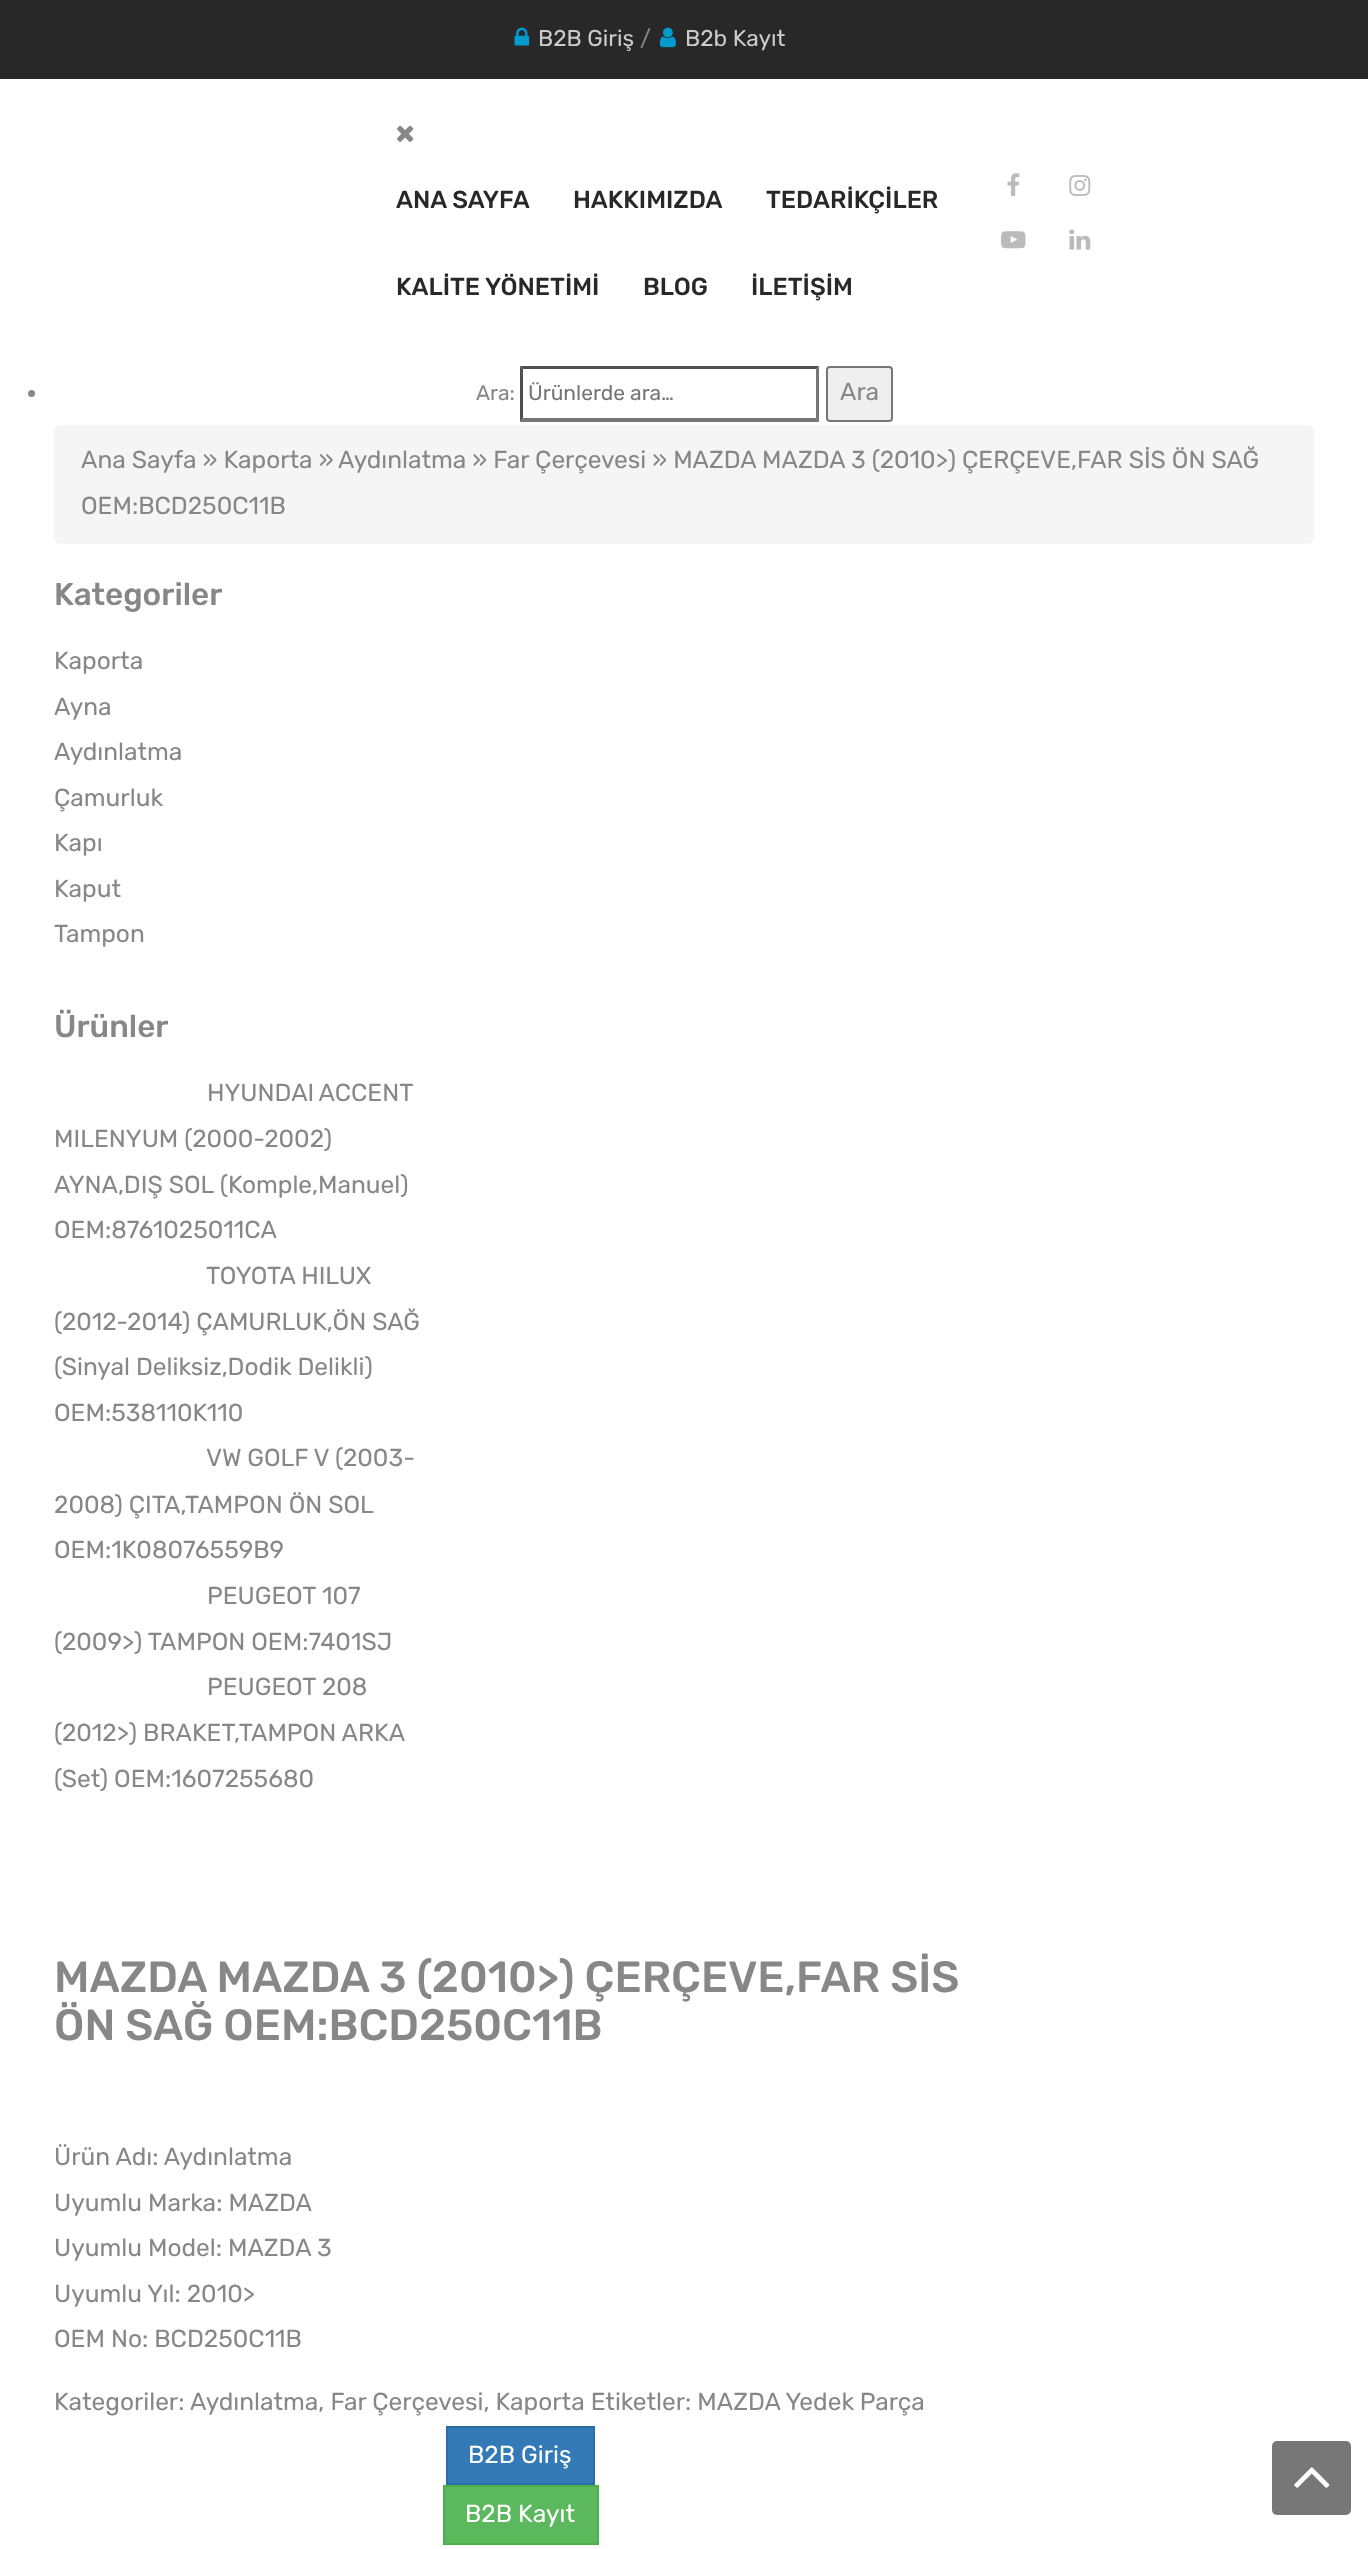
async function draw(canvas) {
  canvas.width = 1368
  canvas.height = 2549
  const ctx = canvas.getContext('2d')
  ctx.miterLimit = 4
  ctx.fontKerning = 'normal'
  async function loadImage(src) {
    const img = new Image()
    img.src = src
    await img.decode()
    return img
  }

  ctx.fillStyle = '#fff'
  ctx.fillRect(0, 0, 1368, 2549)
  ctx.fillStyle = '#282828'
  ctx.fillRect(0, 0, 1368, 79)
  ctx.drawImage(await loadImage('image0.png'), 514, 27, 16, 19)
  ctx.font = '22.75px Rubik'
  ctx.fillStyle = '#ccc'
  ctx.fillText('B2B Giriş', 538, 46)
  ctx.fillStyle = '#878787'
  ctx.fillText('/', 640, 46)
  ctx.drawImage(await loadImage('image1.png'), 659, 27, 17, 21)
  ctx.fillStyle = '#ccc'
  ctx.fillText('B2b Kayıt', 685, 46)
  ctx.drawImage(await loadImage('image2.png'), 397, 125, 17, 17)
  ctx.font = '500 24.5px Rubik'
  ctx.fillStyle = '#282828'
  ctx.fillText('ANA SAYFA', 396, 208)
  ctx.fillText('HAKKIMIZDA', 573, 208)
  ctx.fillText('TEDARİKÇİLER', 766, 208)
  ctx.fillText('KALİTE YÖNETİMİ', 396, 295)
  ctx.fillText('BLOG', 643, 295)
  ctx.fillText('İLETİŞİM', 751, 295)
  ctx.drawImage(await loadImage('image3.png'), 1007, 173, 13, 23)
  ctx.drawImage(await loadImage('image4.png'), 1069, 175, 22, 21)
  ctx.drawImage(await loadImage('image5.png'), 1001, 231, 25, 18)
  ctx.drawImage(await loadImage('image6.png'), 1069, 229, 22, 21)
  ctx.fillStyle = '#878787'
  ctx.beginPath()
  ctx.arc(31.5, 393.5, 3.5, 0, 2 * Math.PI)
  ctx.fill()
  ctx.font = '21px Rubik'
  ctx.fillText('Ara:', 476, 400)
  ctx.fillStyle = '#4f4f4f'
  ctx.beginPath()
  ctx.moveTo(520, 366)
  ctx.lineTo(819, 366)
  ctx.lineTo(816, 369)
  ctx.lineTo(523, 369)
  ctx.closePath()
  ctx.fill()
  ctx.fillStyle = '#767676'
  ctx.beginPath()
  ctx.moveTo(819, 366)
  ctx.lineTo(819, 422)
  ctx.lineTo(816, 418)
  ctx.lineTo(816, 369)
  ctx.closePath()
  ctx.fill()
  ctx.beginPath()
  ctx.moveTo(819, 422)
  ctx.lineTo(520, 422)
  ctx.lineTo(523, 418)
  ctx.lineTo(816, 418)
  ctx.closePath()
  ctx.fill()
  ctx.fillStyle = '#4f4f4f'
  ctx.beginPath()
  ctx.moveTo(520, 422)
  ctx.lineTo(520, 366)
  ctx.lineTo(523, 369)
  ctx.lineTo(523, 418)
  ctx.closePath()
  ctx.fill()
  ctx.fillStyle = '#757575'
  ctx.fillText('Ürünlerde ara…', 528, 400)
  ctx.fillStyle = '#efefef'
  ctx.beginPath()
  ctx.roundRect(827, 367, 65, 54, 3)
  ctx.fill()
  ctx.strokeStyle = '#767676'
  ctx.lineWidth = 2
  ctx.stroke()
  ctx.font = '24.5px Rubik'
  ctx.fillStyle = '#878787'
  ctx.fillText('Ara', 840, 400)
  ctx.fillStyle = '#f5f5f5'
  ctx.beginPath()
  ctx.roundRect(54, 425, 1260, 119, 7)
  ctx.fill()
  ctx.fillStyle = '#878787'
  ctx.fillText('Ana Sayfa » Kaporta »', 81, 468)
  ctx.fillText('Aydınlatma » Far Çerçevesi » MAZDA MAZDA 3 (2010>) ÇERÇEVE,FAR SİS ÖN SAĞ', 338, 468)
  ctx.fillText('OEM:BCD250C11B', 81, 514)
  ctx.font = '500 31.5px Rubik'
  ctx.fillText('Kategoriler', 54, 605)
  ctx.font = '24.5px Rubik'
  ctx.fillText('Kaporta', 54, 669)
  ctx.fillText('Ayna', 54, 715)
  ctx.fillText('Aydınlatma', 54, 760)
  ctx.fillText('Çamurluk', 54, 806)
  ctx.fillText('Kapı', 54, 851)
  ctx.fillText('Kaput', 54, 897)
  ctx.fillText('Tampon', 54, 942)
  ctx.font = '500 31.5px Rubik'
  ctx.fillText('Ürünler', 54, 1037)
  ctx.wordSpacing = '-1px'
  ctx.font = '24.5px Rubik'
  ctx.fillText('HYUNDAI ACCENT', 207, 1101)
  ctx.wordSpacing = '0px'
  ctx.fillText('MILENYUM (2000-2002)', 54, 1147)
  ctx.fillText('AYNA,DIŞ SOL (Komple,Manuel)', 54, 1193)
  ctx.fillText('OEM:8761025011CA', 54, 1238)
  ctx.fillText('TOYOTA HILUX', 206, 1284)
  ctx.fillText('(2012-2014) ÇAMURLUK,ÖN SAĞ', 54, 1330)
  ctx.fillText('(Sinyal Deliksiz,Dodik Delikli)', 54, 1375)
  ctx.fillText('OEM:538110K110', 54, 1421)
  ctx.fillText('VW GOLF V (2003-', 206, 1466)
  ctx.fillText('2008) ÇITA,TAMPON ÖN SOL', 54, 1513)
  ctx.fillText('OEM:1K08076559B9', 54, 1558)
  ctx.fillText('PEUGEOT 107', 207, 1604)
  ctx.fillText('(2009>) TAMPON OEM:7401SJ', 54, 1650)
  ctx.fillText('PEUGEOT 208', 207, 1695)
  ctx.fillText('(2012>) BRAKET,TAMPON ARKA', 54, 1741)
  ctx.fillText('(Set) OEM:1607255680', 54, 1787)
  ctx.font = '500 43.75px Rubik'
  ctx.fillText('MAZDA MAZDA 3 (2010>) ÇERÇEVE,FAR SİS', 54, 1992)
  ctx.fillText('ÖN SAĞ OEM:BCD250C11B', 54, 2040)
  ctx.font = '24.5px Rubik'
  ctx.fillText('Ürün Adı: Aydınlatma', 54, 2165)
  ctx.fillText('Uyumlu Marka: MAZDA', 54, 2211)
  ctx.fillText('Uyumlu Model: MAZDA 3', 54, 2256)
  ctx.fillText('Uyumlu Yıl: 2010>', 54, 2302)
  ctx.fillText('OEM No: BCD250C11B', 54, 2347)
  ctx.fillText('Kategoriler:', 54, 2410)
  ctx.fillText('Aydınlatma, Far Çerçevesi, Kaporta Etiketler: MAZDA Yedek Parça', 190, 2410)
  ctx.fillStyle = '#337ab7'
  ctx.beginPath()
  ctx.rect(447, 2427, 147, 57)
  ctx.fill()
  ctx.strokeStyle = '#2e6da4'
  ctx.stroke()
  ctx.fillStyle = '#fff'
  ctx.fillText('B2B Giriş', 468, 2463)
  ctx.fillStyle = '#5cb85c'
  ctx.beginPath()
  ctx.rect(444, 2486, 154, 58)
  ctx.fill()
  ctx.strokeStyle = '#4cae4c'
  ctx.stroke()
  ctx.fillStyle = '#fff'
  ctx.fillText('B2B Kayıt', 465, 2522)
  ctx.fillStyle = '#777'
  ctx.beginPath()
  ctx.roundRect(1272, 2441, 79, 74, 5)
  ctx.fill()
  ctx.drawImage(await loadImage('image7.png'), 1294, 2467, 36, 21)
}

draw(document.querySelector('canvas'))
